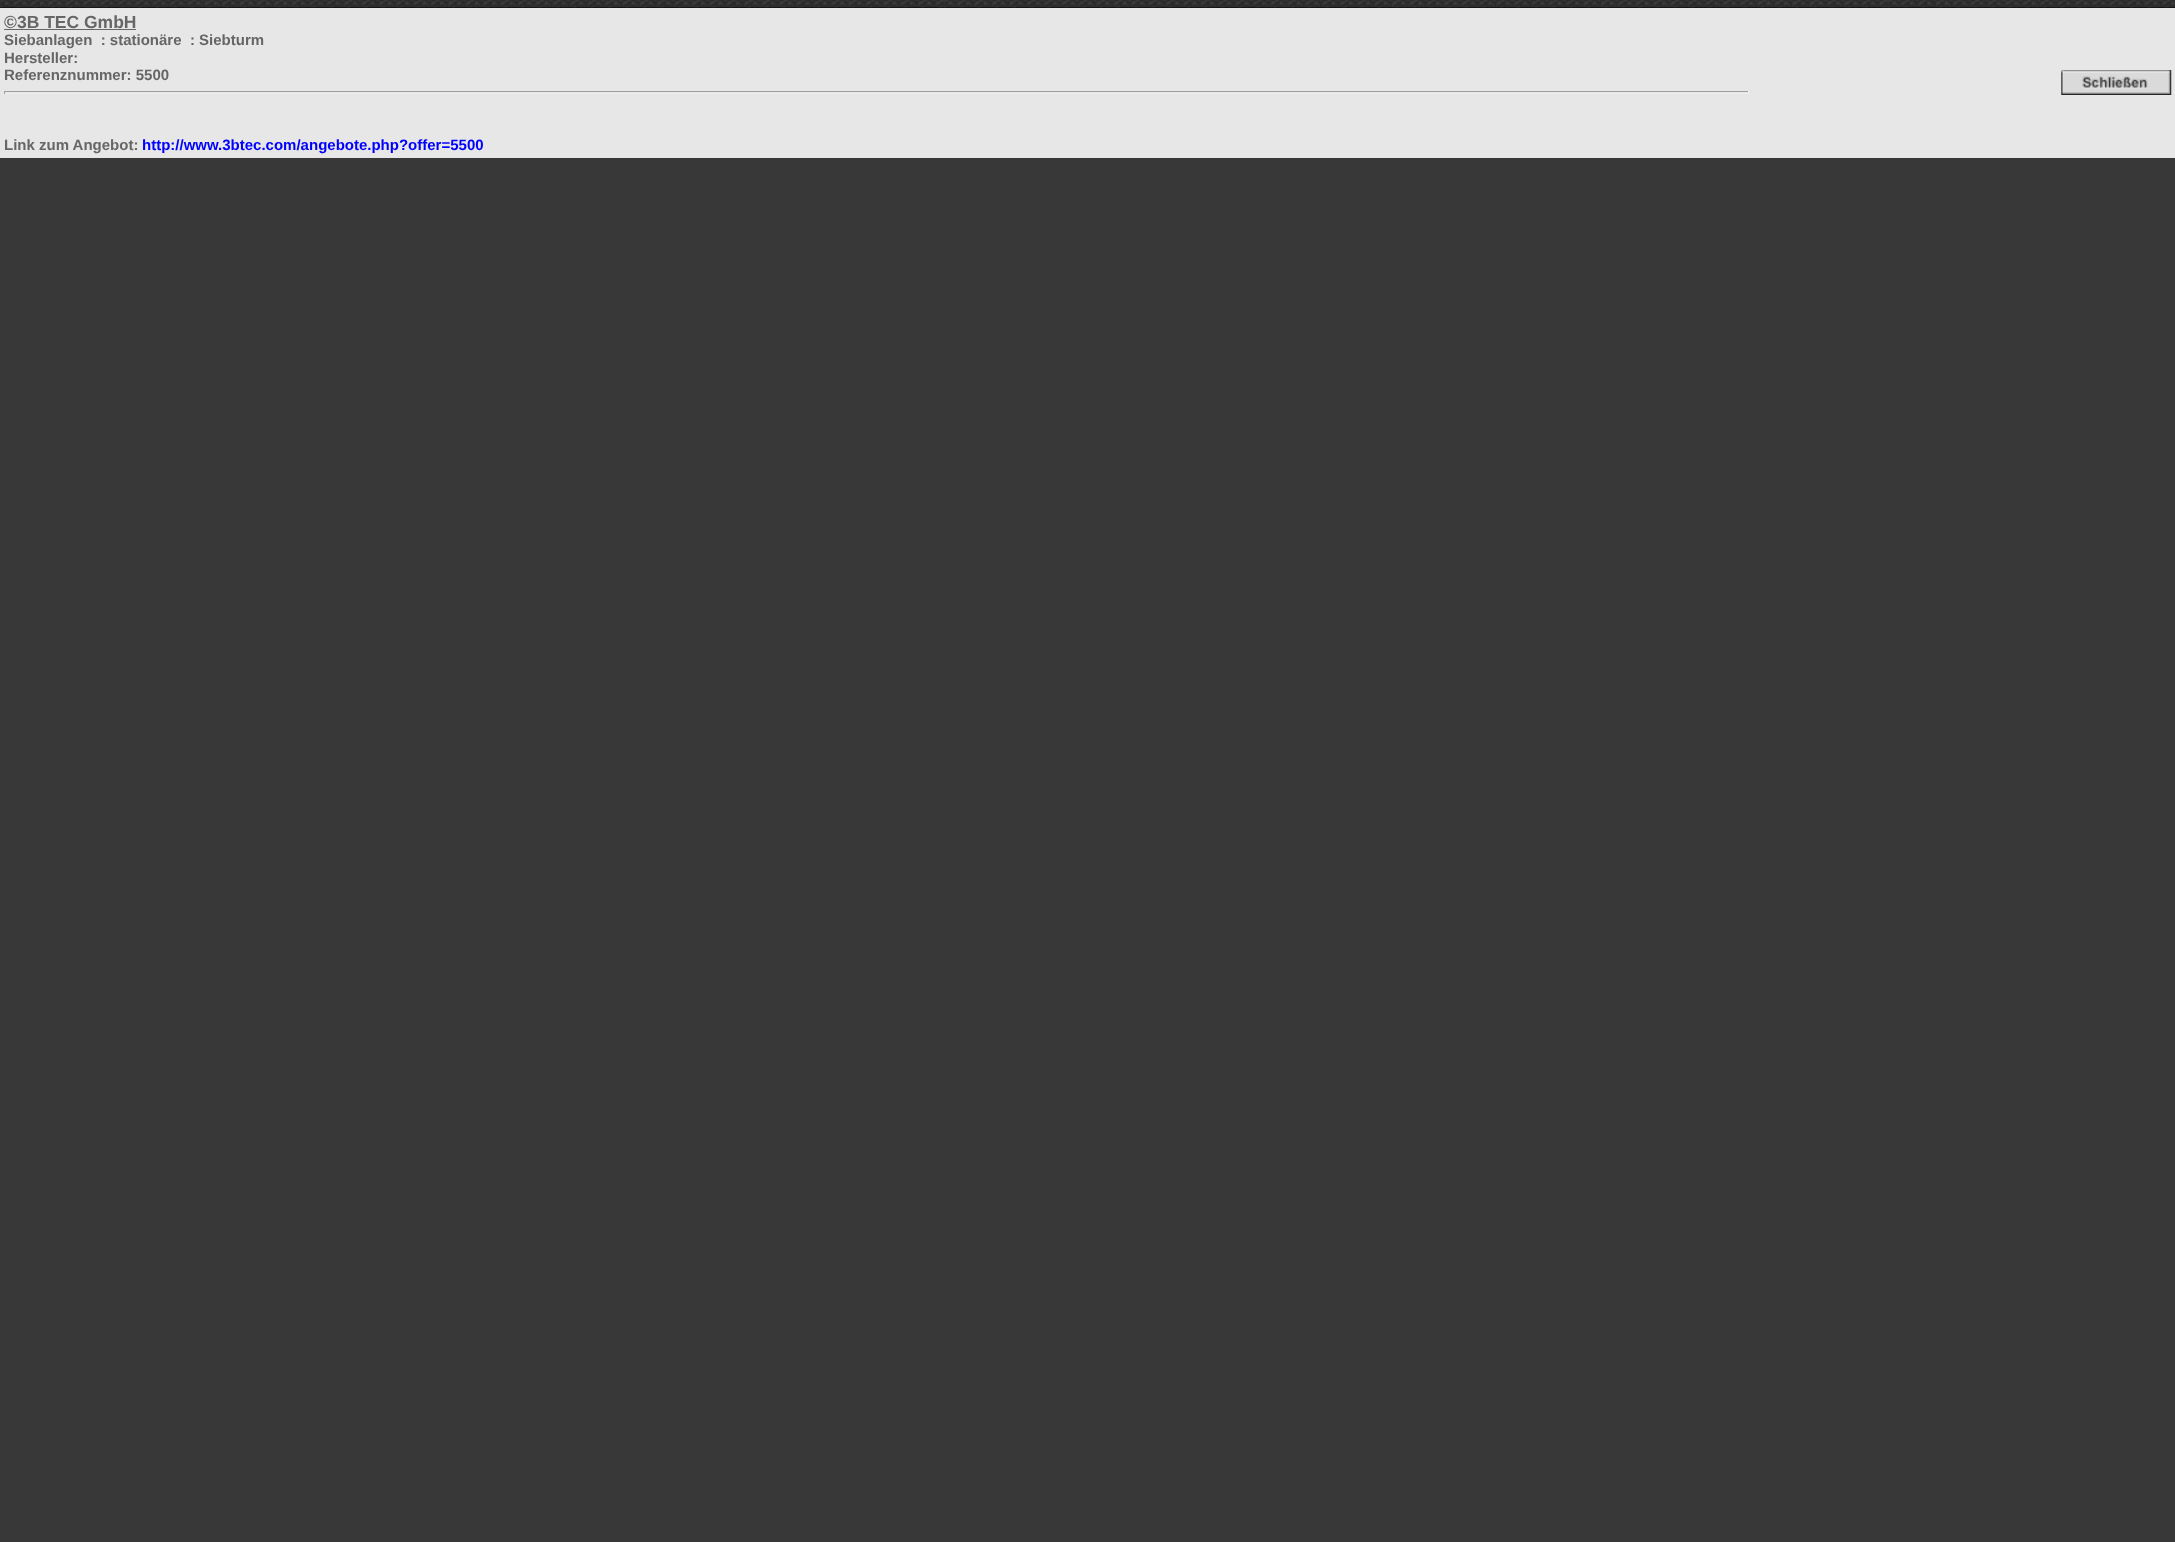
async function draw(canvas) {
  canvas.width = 2175
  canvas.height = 1542
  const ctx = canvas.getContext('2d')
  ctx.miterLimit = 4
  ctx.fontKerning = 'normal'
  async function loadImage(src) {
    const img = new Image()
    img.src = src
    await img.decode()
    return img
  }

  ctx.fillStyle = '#383838'
  ctx.fillRect(0, 0, 2175, 1542)
  ctx.fillStyle = '#000'
  ctx.fillRect(0, 7, 2175, 1)
  ctx.drawImage(await loadImage('image0.png'), 0, 0, 2175, 8)
  ctx.fillStyle = '#e7e7e7'
  ctx.fillRect(0, 8, 2175, 150)
  ctx.font = 'bold 17.5px Liberation Sans'
  ctx.fillStyle = '#666'
  ctx.fillText('©3B TEC GmbH', 4, 28)
  ctx.fillRect(4, 29, 132, 1)
  ctx.font = 'bold 15px Liberation Sans'
  ctx.fillText('Siebanlagen  : stationäre  : Siebturm', 4, 45)
  ctx.fillText('Hersteller:', 4, 63)
  ctx.fillText('Referenznummer: 5500', 4, 80)
  ctx.fillStyle = '#9f9f9f'
  ctx.fillRect(4, 91, 1745, 1)
  ctx.fillStyle = '#eee'
  ctx.fillRect(1748, 91, 1, 3)
  ctx.fillRect(4, 93, 1745, 1)
  ctx.fillStyle = '#9f9f9f'
  ctx.fillRect(4, 91, 1, 3)
  ctx.fillStyle = '#666'
  ctx.fillText('Link zum Angebot:', 4, 150)
  ctx.fillStyle = '#00f'
  ctx.fillText('http://www.3btec.com/angebote.php?offer=5500', 142, 150)
  ctx.drawImage(await loadImage('image1.png'), 2061, 70, 111, 25)
}

draw(document.querySelector('canvas'))
